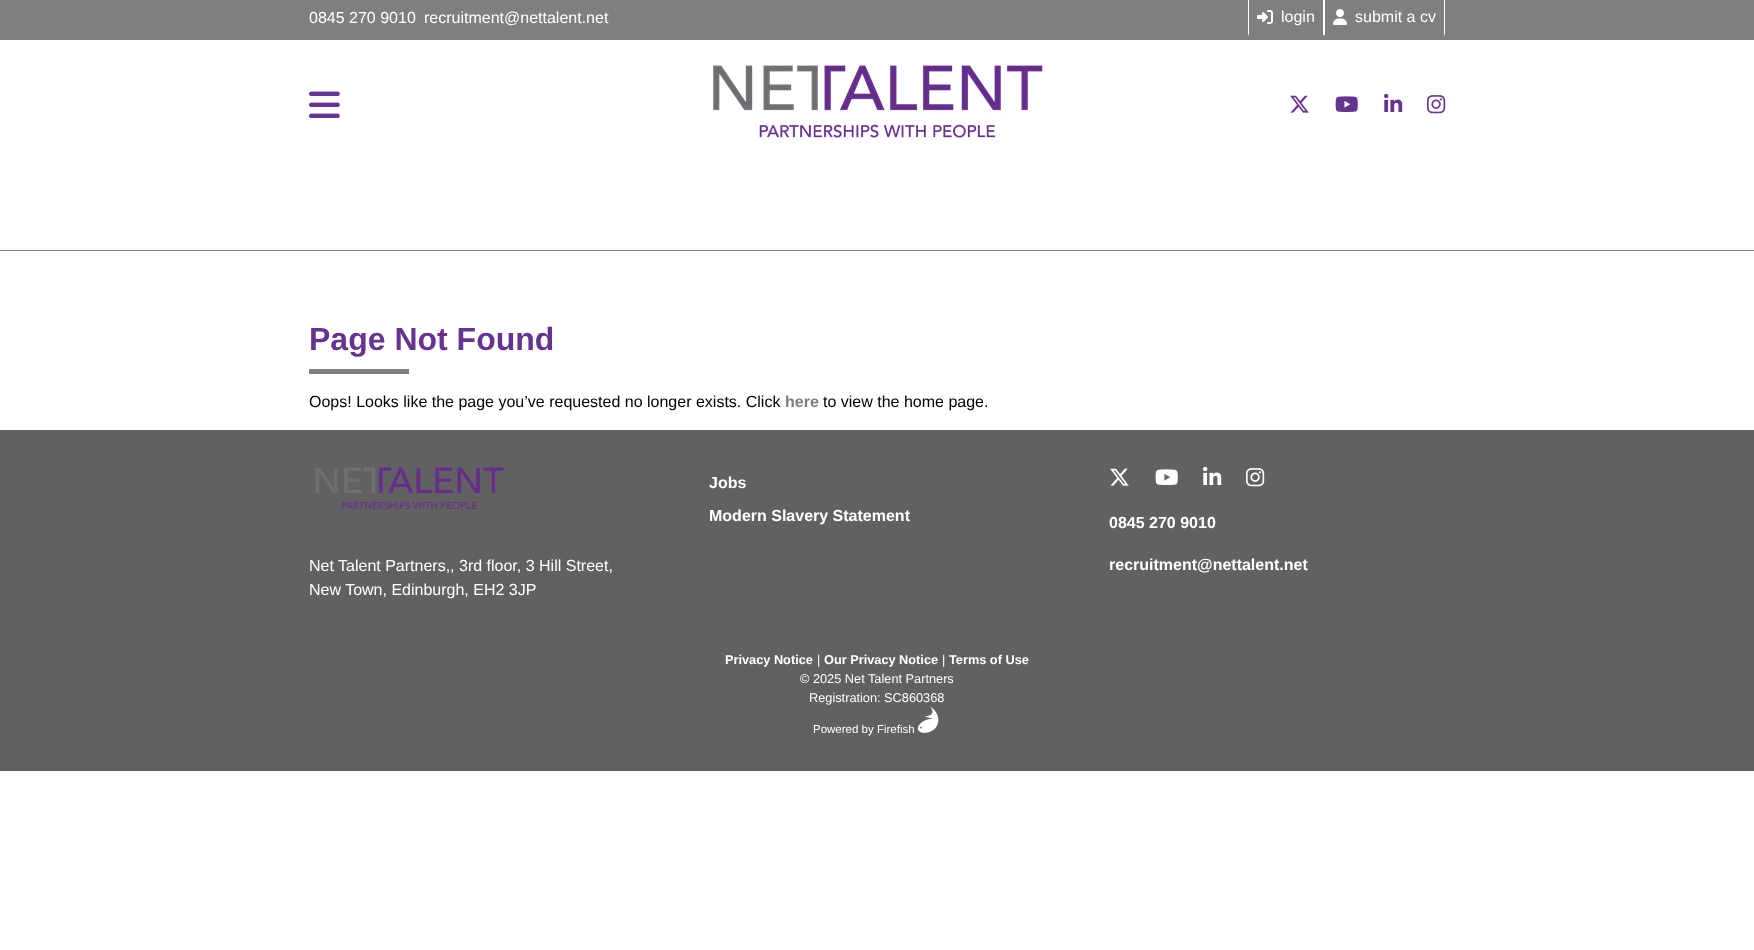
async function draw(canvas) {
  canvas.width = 1754
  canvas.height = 950
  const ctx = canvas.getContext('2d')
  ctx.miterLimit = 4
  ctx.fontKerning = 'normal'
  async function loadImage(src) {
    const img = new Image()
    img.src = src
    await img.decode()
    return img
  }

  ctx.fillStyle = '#fff'
  ctx.fillRect(0, 0, 1754, 950)
  ctx.fillStyle = '#7f7f7f'
  ctx.fillRect(0, 0, 1754, 40)
  ctx.font = '16px Liberation Sans'
  ctx.fillStyle = '#fff'
  ctx.fillText('0845 270 9010', 309, 23)
  ctx.fillText('recruitment@nettalent.net', 424, 23)
  ctx.beginPath()
  ctx.moveTo(1324, 0)
  ctx.lineTo(1324, 36)
  ctx.lineTo(1323, 34)
  ctx.lineTo(1323, 0)
  ctx.closePath()
  ctx.fill()
  ctx.beginPath()
  ctx.moveTo(1248, 36)
  ctx.lineTo(1248, 0)
  ctx.lineTo(1249, 0)
  ctx.lineTo(1249, 34)
  ctx.closePath()
  ctx.fill()
  ctx.drawImage(await loadImage('image0.png'), 1257, 10, 16, 14)
  ctx.fillText('login', 1281, 22)
  ctx.beginPath()
  ctx.moveTo(1445, 0)
  ctx.lineTo(1445, 36)
  ctx.lineTo(1444, 34)
  ctx.lineTo(1444, 0)
  ctx.closePath()
  ctx.fill()
  ctx.beginPath()
  ctx.moveTo(1324, 36)
  ctx.lineTo(1324, 0)
  ctx.lineTo(1325, 0)
  ctx.lineTo(1325, 34)
  ctx.closePath()
  ctx.fill()
  ctx.drawImage(await loadImage('image1.png'), 1333, 9, 14, 16)
  ctx.fillText('submit a cv', 1355, 22)
  ctx.drawImage(await loadImage('image2.png'), 309, 91, 31, 27)
  ctx.drawImage(await loadImage('image3.png'), 713, 65, 330, 73)
  ctx.drawImage(await loadImage('image4.png'), 1290, 95, 19, 18)
  ctx.drawImage(await loadImage('image5.png'), 1335, 96, 23, 16)
  ctx.drawImage(await loadImage('image6.png'), 1384, 93, 19, 19)
  ctx.drawImage(await loadImage('image7.png'), 1427, 95, 19, 19)
  ctx.fillStyle = '#7f7f7f'
  ctx.fillRect(0, 250, 1754, 1)
  ctx.font = 'bold 32px Liberation Sans'
  ctx.fillStyle = '#673391'
  ctx.fillText('Page Not Found', 309, 350)
  ctx.fillStyle = '#7f7f7f'
  ctx.fillRect(309, 369, 100, 5)
  ctx.font = '16px Liberation Sans'
  ctx.fillStyle = '#000'
  ctx.fillText('Oops! Looks like the page you’ve requested no longer exists. Click', 309, 407)
  ctx.font = 'bold 16px Liberation Sans'
  ctx.fillStyle = '#7f7f7f'
  ctx.fillText('here', 785, 407)
  ctx.font = '16px Liberation Sans'
  ctx.fillStyle = '#000'
  ctx.fillText('to view the home page.', 823, 407)
  ctx.fillStyle = '#616161'
  ctx.fillRect(0, 430, 1754, 341)
  ctx.font = 'bold 16px Liberation Sans'
  ctx.fillStyle = '#fff'
  ctx.fillText('Jobs', 709, 488)
  ctx.fillText('Modern Slavery Statement', 709, 521)
  ctx.drawImage(await loadImage('image8.png'), 1110, 468, 19, 18)
  ctx.drawImage(await loadImage('image9.png'), 1155, 469, 23, 16)
  ctx.drawImage(await loadImage('image10.png'), 1203, 466, 19, 19)
  ctx.drawImage(await loadImage('image11.png'), 1246, 468, 19, 19)
  ctx.fillText('0845 270 9010', 1109, 528)
  ctx.fillText('recruitment@nettalent.net', 1109, 570)
  ctx.drawImage(await loadImage('image12.png'), 315, 467, 189, 42)
  ctx.font = '16px Liberation Sans'
  ctx.fillText('Net Talent Partners,, 3rd floor, 3 Hill Street,', 309, 571)
  ctx.fillText('New Town, Edinburgh, EH2 3JP', 309, 595)
  ctx.font = 'bold 12.75px Liberation Sans'
  ctx.fillText('Privacy Notice', 725, 664)
  ctx.font = '12.75px Liberation Sans'
  ctx.fillText('|', 817, 664)
  ctx.font = 'bold 12.75px Liberation Sans'
  ctx.fillText('Our Privacy Notice', 824, 664)
  ctx.font = '12.75px Liberation Sans'
  ctx.fillText('|', 942, 664)
  ctx.font = 'bold 12.75px Liberation Sans'
  ctx.fillText('Terms of Use', 949, 664)
  ctx.font = '12.75px Liberation Sans'
  ctx.fillText('© 2025 Net Talent Partners', 800, 683)
  ctx.fillText('Registration: SC860368', 809, 702)
  ctx.font = '11.5px Liberation Sans'
  ctx.fillText('Powered by Firefish', 813, 733)
  ctx.drawImage(await loadImage('image13.png'), 917, 707, 22, 26)
}

draw(document.querySelector('canvas'))
